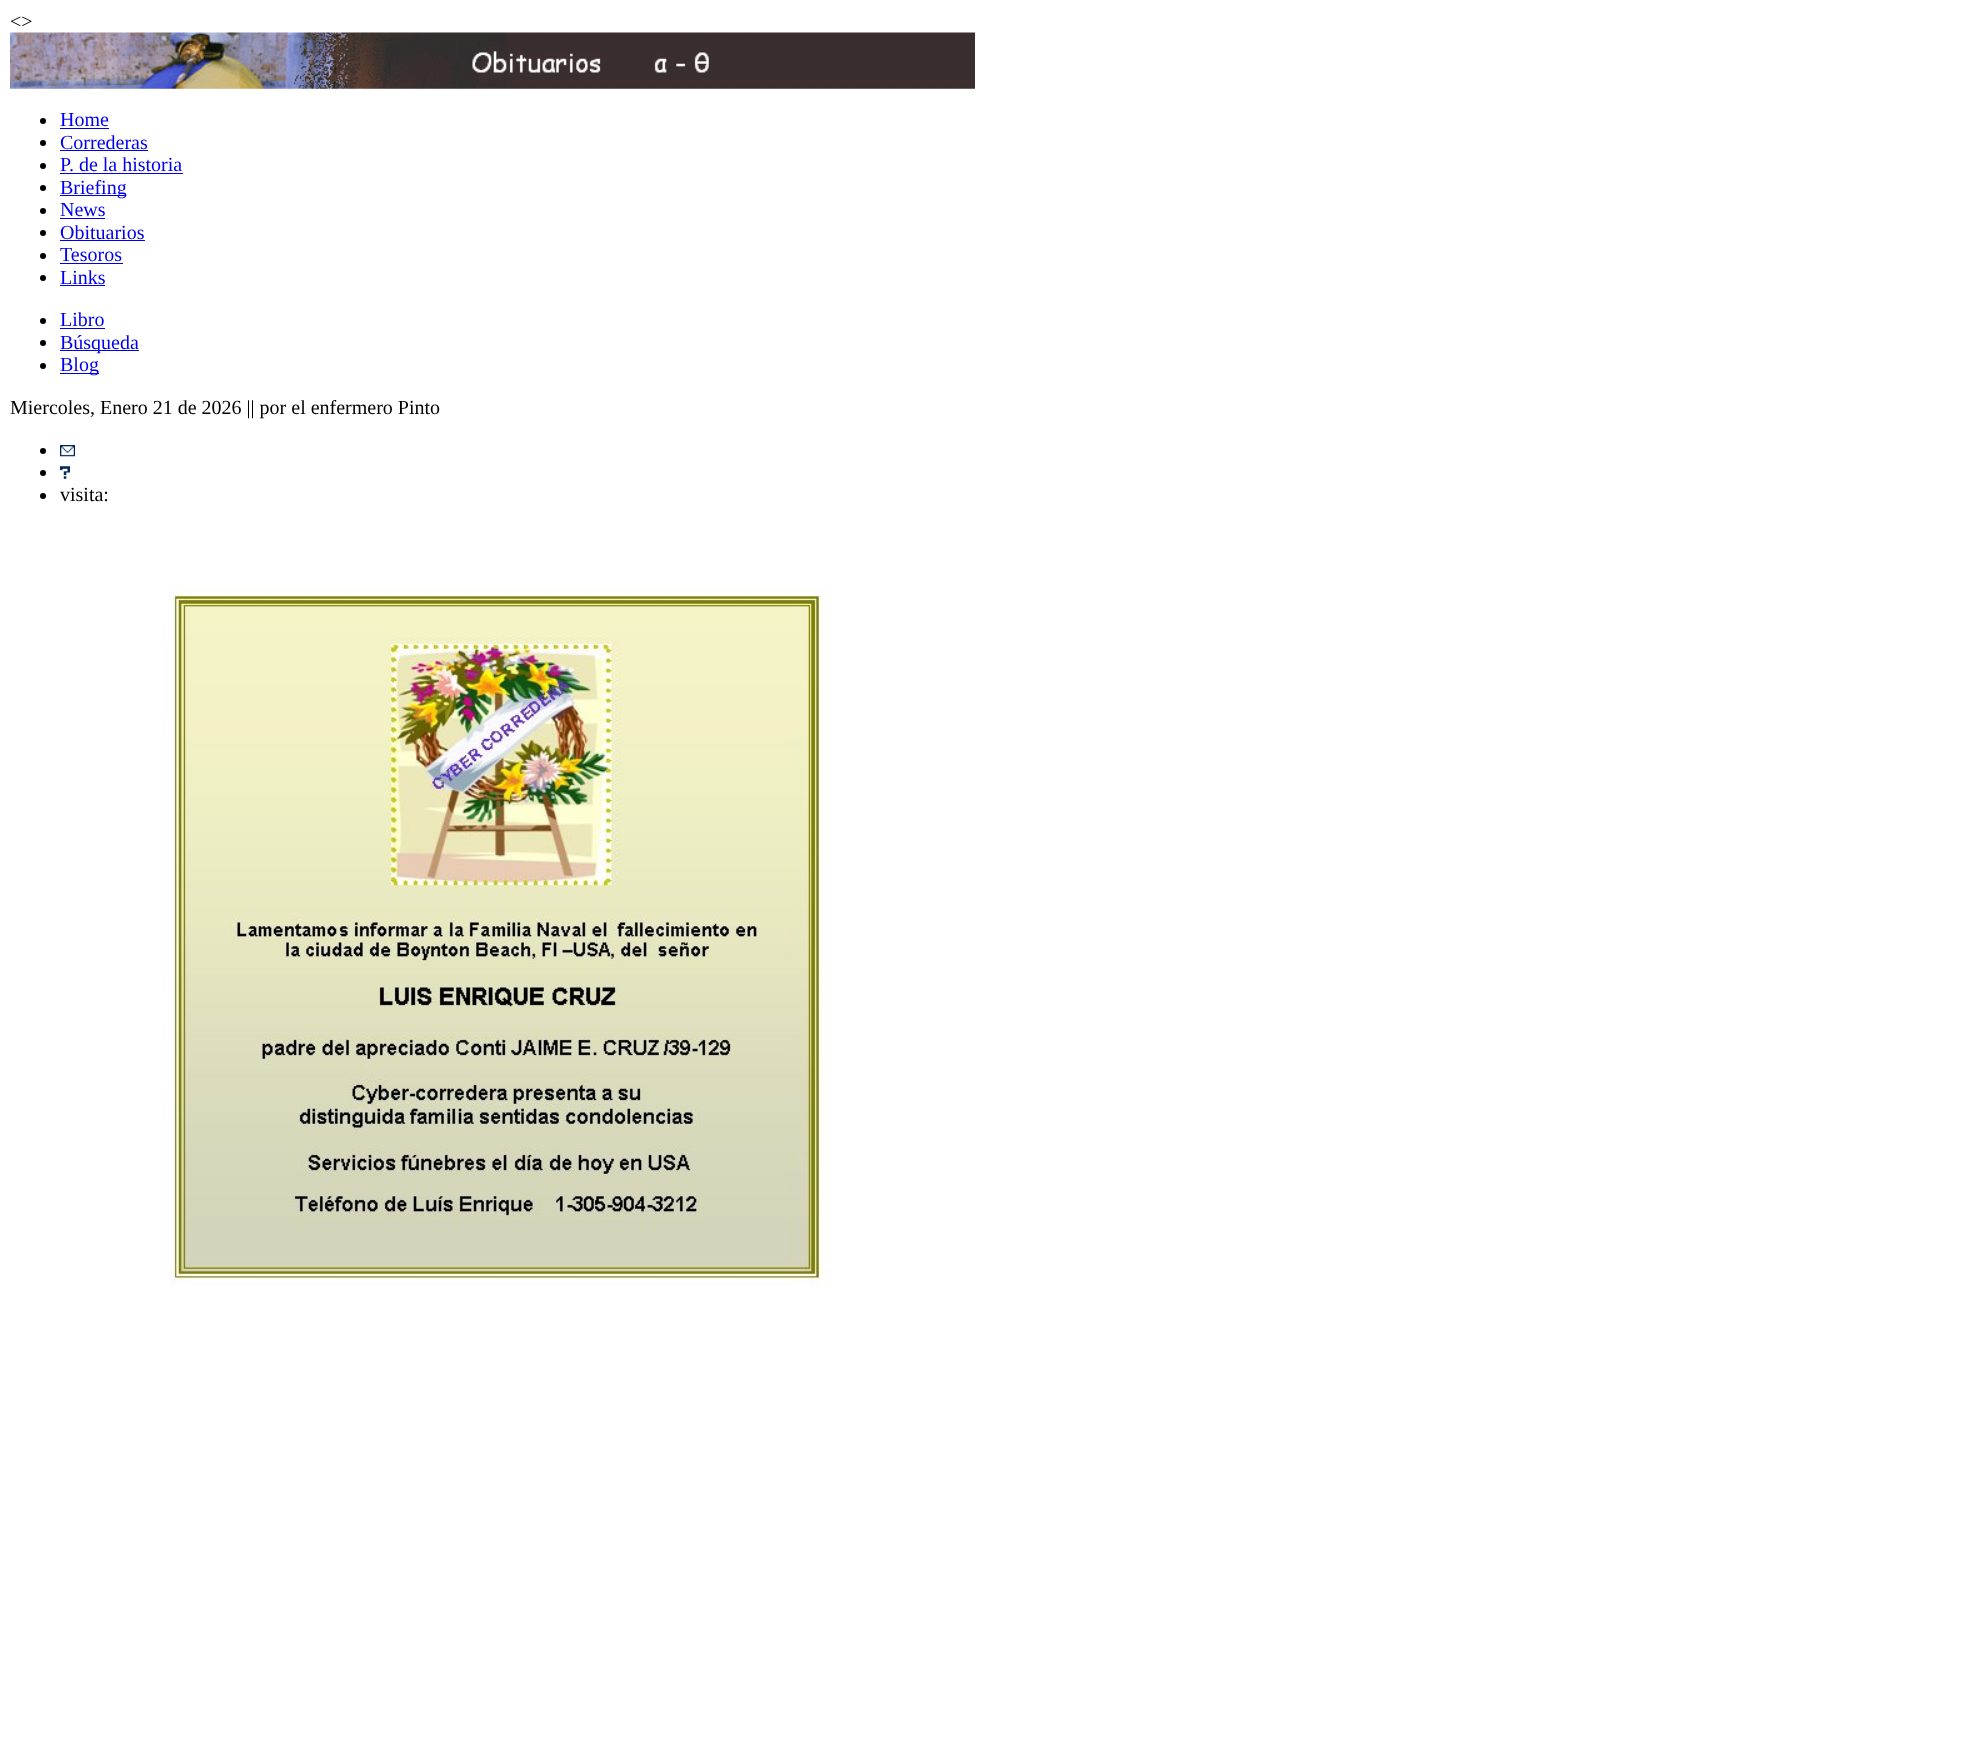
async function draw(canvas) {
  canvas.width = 1983
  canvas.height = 1754
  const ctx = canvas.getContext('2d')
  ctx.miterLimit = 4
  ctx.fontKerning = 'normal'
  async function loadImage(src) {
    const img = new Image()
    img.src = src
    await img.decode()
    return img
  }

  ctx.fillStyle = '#fff'
  ctx.fillRect(0, 0, 1983, 1754)
  ctx.font = '20px Liberation Serif'
  ctx.fillStyle = '#000'
  ctx.fillText('<>', 10, 28)
  ctx.drawImage(await loadImage('image0.png'), 10, 32, 965, 57)
  ctx.beginPath()
  ctx.arc(43, 121, 3, 0, 2 * Math.PI)
  ctx.fill()
  ctx.fillStyle = '#00e'
  ctx.fillText('Home', 60, 126)
  ctx.fillRect(60, 128, 49, 1)
  ctx.fillStyle = '#000'
  ctx.beginPath()
  ctx.arc(43, 143, 3, 0, 2 * Math.PI)
  ctx.fill()
  ctx.fillStyle = '#00e'
  ctx.fillText('Correderas', 60, 149)
  ctx.fillRect(60, 150, 88, 1)
  ctx.fillStyle = '#000'
  ctx.beginPath()
  ctx.arc(43, 166, 3, 0, 2 * Math.PI)
  ctx.fill()
  ctx.fillStyle = '#00e'
  ctx.fillText('P. de la historia', 60, 171)
  ctx.fillRect(60, 173, 123, 1)
  ctx.fillStyle = '#000'
  ctx.beginPath()
  ctx.arc(43, 188, 3, 0, 2 * Math.PI)
  ctx.fill()
  ctx.fillStyle = '#00e'
  ctx.fillRect(60, 195, 66, 1)
  ctx.fillText('Briefing', 60, 194)
  ctx.fillStyle = '#000'
  ctx.beginPath()
  ctx.arc(43, 211, 3, 0, 2 * Math.PI)
  ctx.fill()
  ctx.fillStyle = '#00e'
  ctx.fillText('News', 60, 216)
  ctx.fillRect(60, 218, 45, 1)
  ctx.fillStyle = '#000'
  ctx.beginPath()
  ctx.arc(43, 233, 3, 0, 2 * Math.PI)
  ctx.fill()
  ctx.fillStyle = '#00e'
  ctx.fillText('Obituarios', 60, 239)
  ctx.fillRect(60, 240, 85, 1)
  ctx.fillStyle = '#000'
  ctx.beginPath()
  ctx.arc(43, 256, 3, 0, 2 * Math.PI)
  ctx.fill()
  ctx.fillStyle = '#00e'
  ctx.fillText('Tesoros', 60, 261)
  ctx.fillRect(60, 263, 63, 1)
  ctx.fillStyle = '#000'
  ctx.beginPath()
  ctx.arc(43, 278, 3, 0, 2 * Math.PI)
  ctx.fill()
  ctx.fillStyle = '#00e'
  ctx.fillText('Links', 60, 284)
  ctx.fillRect(60, 285, 45, 1)
  ctx.fillStyle = '#000'
  ctx.beginPath()
  ctx.arc(43, 321, 3, 0, 2 * Math.PI)
  ctx.fill()
  ctx.fillStyle = '#00e'
  ctx.fillText('Libro', 60, 326)
  ctx.fillRect(60, 328, 45, 1)
  ctx.fillStyle = '#000'
  ctx.beginPath()
  ctx.arc(43, 343, 3, 0, 2 * Math.PI)
  ctx.fill()
  ctx.fillStyle = '#00e'
  ctx.fillRect(60, 350, 79, 1)
  ctx.fillText('Búsqueda', 60, 349)
  ctx.fillStyle = '#000'
  ctx.beginPath()
  ctx.arc(43, 366, 3, 0, 2 * Math.PI)
  ctx.fill()
  ctx.fillStyle = '#00e'
  ctx.fillRect(60, 373, 39, 1)
  ctx.fillText('Blog', 60, 371)
  ctx.fillStyle = '#000'
  ctx.fillText('Miercoles, Enero 21 de 2026 || por el enfermero Pinto', 10, 414)
  ctx.beginPath()
  ctx.arc(43, 451, 3, 0, 2 * Math.PI)
  ctx.fill()
  ctx.drawImage(await loadImage('image1.png'), 60, 445, 15, 12)
  ctx.beginPath()
  ctx.arc(43, 473, 3, 0, 2 * Math.PI)
  ctx.fill()
  ctx.drawImage(await loadImage('image2.png'), 60, 466, 10, 13)
  ctx.beginPath()
  ctx.arc(43, 496, 3, 0, 2 * Math.PI)
  ctx.fill()
  ctx.fillText('visita:', 60, 501)
  ctx.drawImage(await loadImage('image3.png'), 169, 586, 662, 701)
}

draw(document.querySelector('canvas'))
